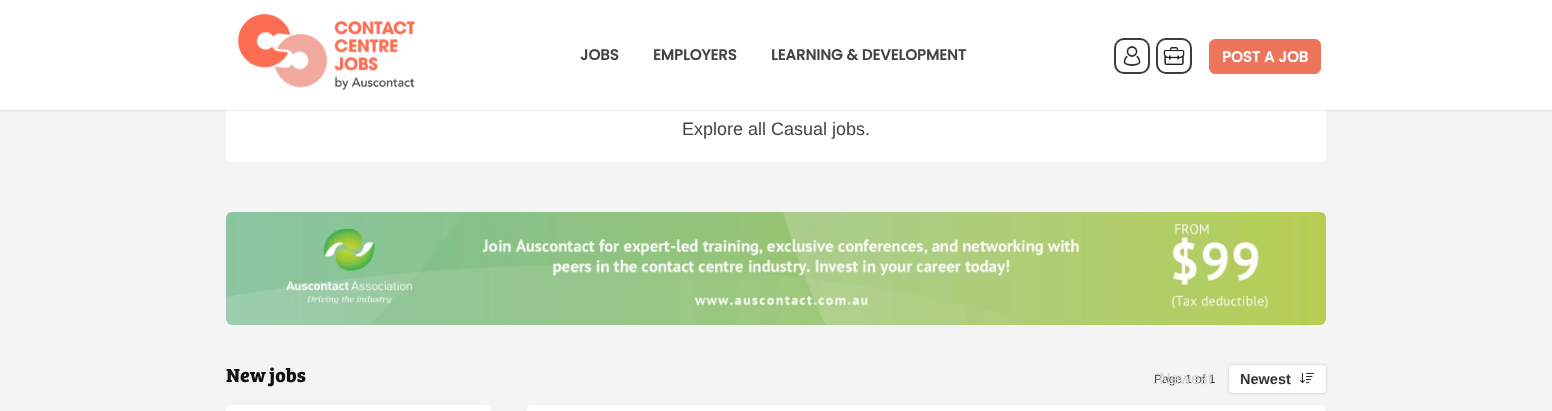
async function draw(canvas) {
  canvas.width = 1552
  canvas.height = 411
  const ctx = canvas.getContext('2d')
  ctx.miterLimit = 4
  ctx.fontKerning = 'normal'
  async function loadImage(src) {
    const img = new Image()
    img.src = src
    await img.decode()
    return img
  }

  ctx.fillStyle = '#f4f4f4'
  ctx.fillRect(0, 0, 1552, 411)
  ctx.fillStyle = '#fff'
  ctx.beginPath()
  ctx.roundRect(226, 60, 1100, 102, [0, 0, 6, 6])
  ctx.fill()
  ctx.fillStyle = '#00000033'
  ctx.filter = 'blur(1px)'
  ctx.beginPath()
  ctx.rect(0, 0, 1552, 110)
  ctx.fill()
  ctx.filter = 'none'
  ctx.fillStyle = '#fff'
  ctx.fillRect(0, 0, 1552, 110)
  ctx.drawImage(await loadImage('image0.png'), 238, 14, 177, 76)
  ctx.font = 'bold 15px Poppins'
  ctx.fillStyle = '#444'
  ctx.fillText('JOBS', 580, 60)
  ctx.fillText('EMPLOYERS', 653, 60)
  ctx.fillText('LEARNING & DEVELOPMENT', 771, 60)
  ctx.fillStyle = '#3b3b3b'
  ctx.filter = 'blur(0.5px)'
  ctx.beginPath()
  ctx.roundRect(1114, 38, 36, 36, 10)
  ctx.fill()
  ctx.filter = 'none'
  ctx.fillStyle = '#fff'
  ctx.beginPath()
  ctx.roundRect(1116, 40, 32, 32, 8)
  ctx.fill()
  ctx.drawImage(await loadImage('image1.png'), 1123, 46, 18, 20)
  ctx.fillStyle = '#3b3b3b'
  ctx.filter = 'blur(0.5px)'
  ctx.beginPath()
  ctx.roundRect(1156, 38, 36, 36, 10)
  ctx.fill()
  ctx.filter = 'none'
  ctx.fillStyle = '#fff'
  ctx.beginPath()
  ctx.roundRect(1158, 40, 32, 32, 8)
  ctx.fill()
  ctx.drawImage(await loadImage('image2.png'), 1163, 47, 22, 18)
  ctx.fillStyle = '#ed755c'
  ctx.beginPath()
  ctx.roundRect(1209.5, 39.5, 111, 34, 5.5)
  ctx.fill()
  ctx.strokeStyle = '#ed755c'
  ctx.stroke()
  ctx.fillStyle = '#fff'
  ctx.fillText('POST A JOB', 1222, 62)
  ctx.font = '18px Liberation Sans'
  ctx.fillStyle = '#444'
  ctx.fillText('Explore all Casual jobs.', 682, 135)
  ctx.drawImage(await loadImage('image3.png'), 226, 212, 1100, 113)
  ctx.font = 'bold 19.5px Bree Serif'
  ctx.fillStyle = '#111'
  ctx.fillText('New jobs', 226, 382)
  ctx.font = '12px Liberation Sans'
  ctx.fillStyle = '#444'
  ctx.fillText('Page 1 of 1', 1154, 383)
  ctx.font = '16px Liberation Sans'
  ctx.fillStyle = '#d2d2d2'
  ctx.fillText('Newest', 1159, 384)
  ctx.fillStyle = '#00000033'
  ctx.filter = 'blur(1.5px)'
  ctx.beginPath()
  ctx.roundRect(1229, 365, 97, 28, 4)
  ctx.fill()
  ctx.filter = 'none'
  ctx.fillStyle = '#fff'
  ctx.beginPath()
  ctx.roundRect(1229, 365, 97, 28, 4)
  ctx.fill()
  ctx.font = 'bold 14.5px Liberation Sans'
  ctx.fillStyle = '#333'
  ctx.fillText('Newest', 1240, 384)
  ctx.drawImage(await loadImage('image4.png'), 1300, 372, 14, 12)
  ctx.fillStyle = '#fff'
  ctx.beginPath()
  ctx.roundRect(226, 405, 265, 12, 6)
  ctx.fill()
  ctx.fillStyle = '#0000001a'
  ctx.filter = 'blur(1px)'
  ctx.beginPath()
  ctx.roundRect(526, 406, 800, 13, 5)
  ctx.fill()
  ctx.filter = 'none'
  ctx.fillStyle = '#fff'
  ctx.beginPath()
  ctx.roundRect(526, 405, 800, 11, 5)
  ctx.fill()
}

draw(document.querySelector('canvas'))
